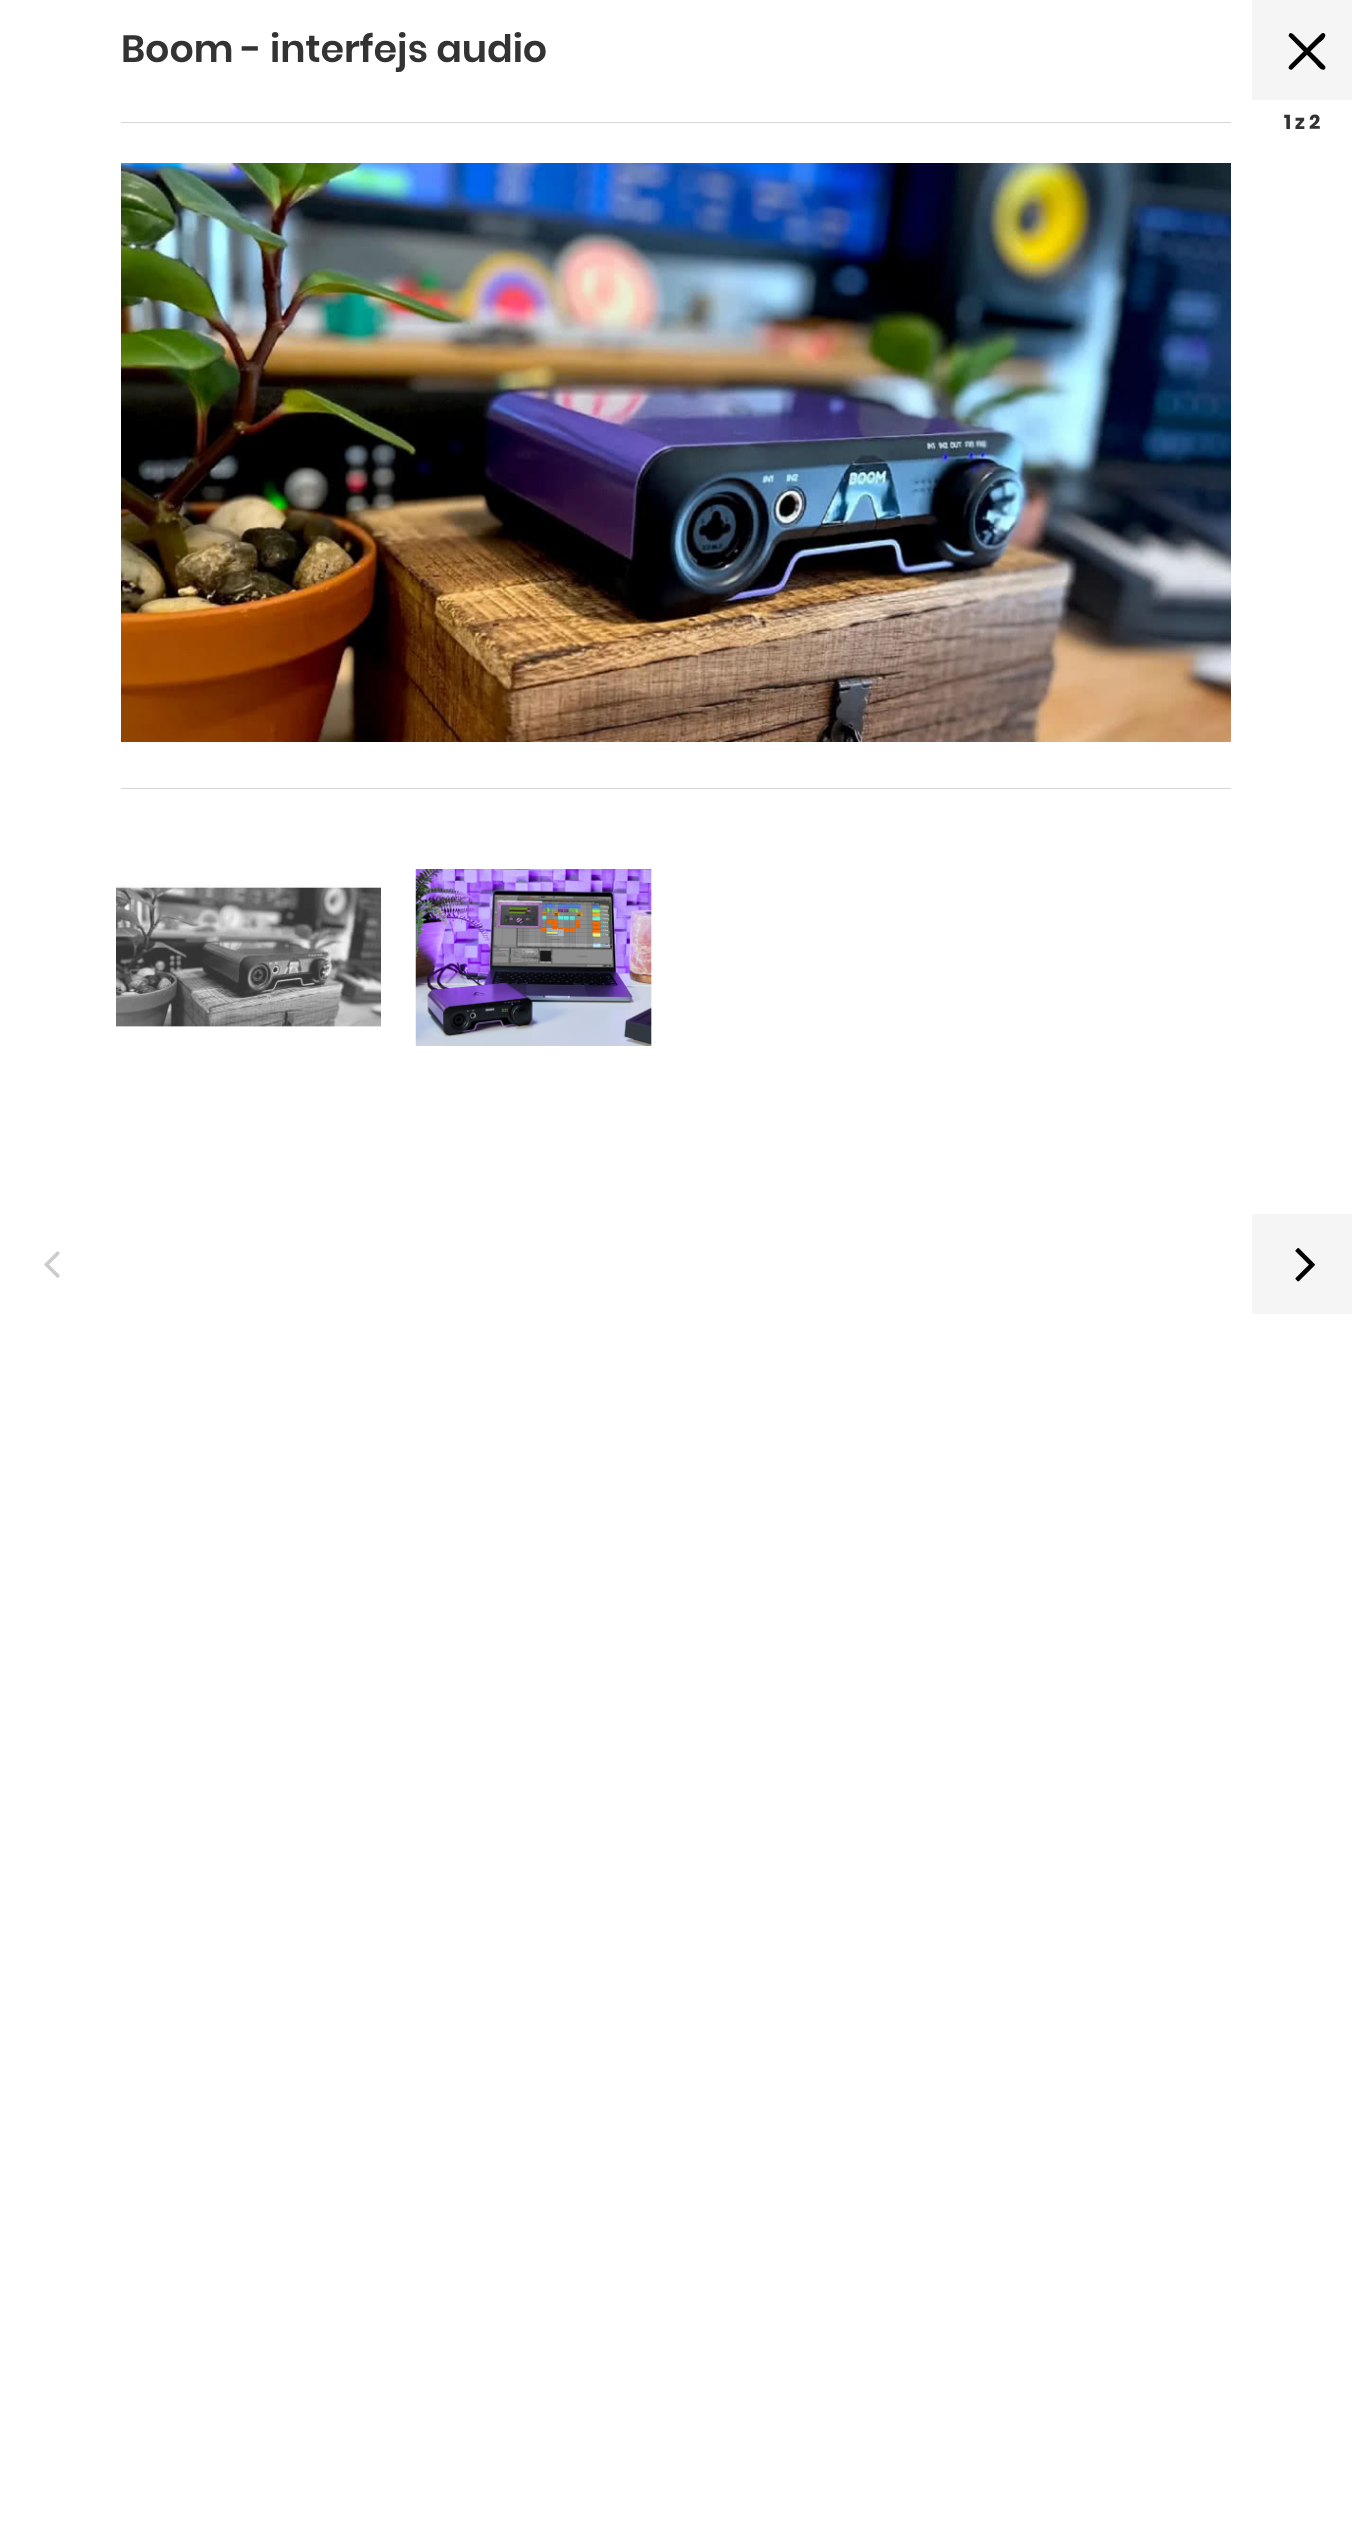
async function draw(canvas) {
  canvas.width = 1352
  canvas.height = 2528
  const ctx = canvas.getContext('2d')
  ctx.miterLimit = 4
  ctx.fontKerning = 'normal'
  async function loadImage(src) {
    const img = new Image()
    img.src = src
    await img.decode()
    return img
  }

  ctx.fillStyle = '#fff'
  ctx.fillRect(0, 0, 1352, 2528)
  ctx.font = '600 38px Poppins'
  ctx.fillStyle = '#333'
  ctx.fillText('Boom - interfejs audio', 121, 62)
  ctx.fillStyle = '#d6d6d6'
  ctx.fillRect(121, 122, 1110, 1)
  ctx.fillRect(121, 788, 1110, 1)
  ctx.drawImage(await loadImage('image0.png'), 121, 163, 1110, 579)
  ctx.fillStyle = '#f5f5f5'
  ctx.fillRect(1252, 0, 100, 100)
  ctx.fillStyle = '#000'
  ctx.beginPath()
  ctx.moveTo(1289.5, 65.5)
  ctx.lineTo(1321.5, 33.5)
  ctx.lineTo(1323, 33)
  ctx.bezierCurveTo(1323.5, 33, 1324.5, 33.5, 1325, 34)
  ctx.bezierCurveTo(1327, 37.5, 1320, 42, 1319.5, 42.5)
  ctx.lineTo(1292, 69.5)
  ctx.bezierCurveTo(1290.5, 70.5, 1288.5, 69, 1288.5, 67.5)
  ctx.closePath()
  ctx.fill()
  ctx.beginPath()
  ctx.moveTo(1293, 34)
  ctx.lineTo(1325, 66)
  ctx.lineTo(1325.5, 67.5)
  ctx.bezierCurveTo(1325.5, 68, 1325, 69, 1324.5, 69.5)
  ctx.bezierCurveTo(1321, 71.5, 1316.5, 64.5, 1316, 64)
  ctx.lineTo(1289, 36.5)
  ctx.bezierCurveTo(1288, 35, 1289.5, 33, 1291, 33)
  ctx.closePath()
  ctx.fill()
  ctx.font = 'bold 20px Poppins'
  ctx.fillStyle = '#333'
  ctx.fillText('1 z 2', 1284, 129)
  ctx.drawImage(await loadImage('image1.png'), 116, 885, 265, 142)
  ctx.drawImage(await loadImage('image2.png'), 415, 869, 237, 177)
  ctx.drawImage(await loadImage('image3.png'), 44, 1251, 16, 27)
  ctx.fillStyle = '#f5f5f5'
  ctx.fillRect(1252, 1214, 100, 100)
  ctx.drawImage(await loadImage('image4.png'), 1295, 1248, 20, 34)
}

draw(document.querySelector('canvas'))
